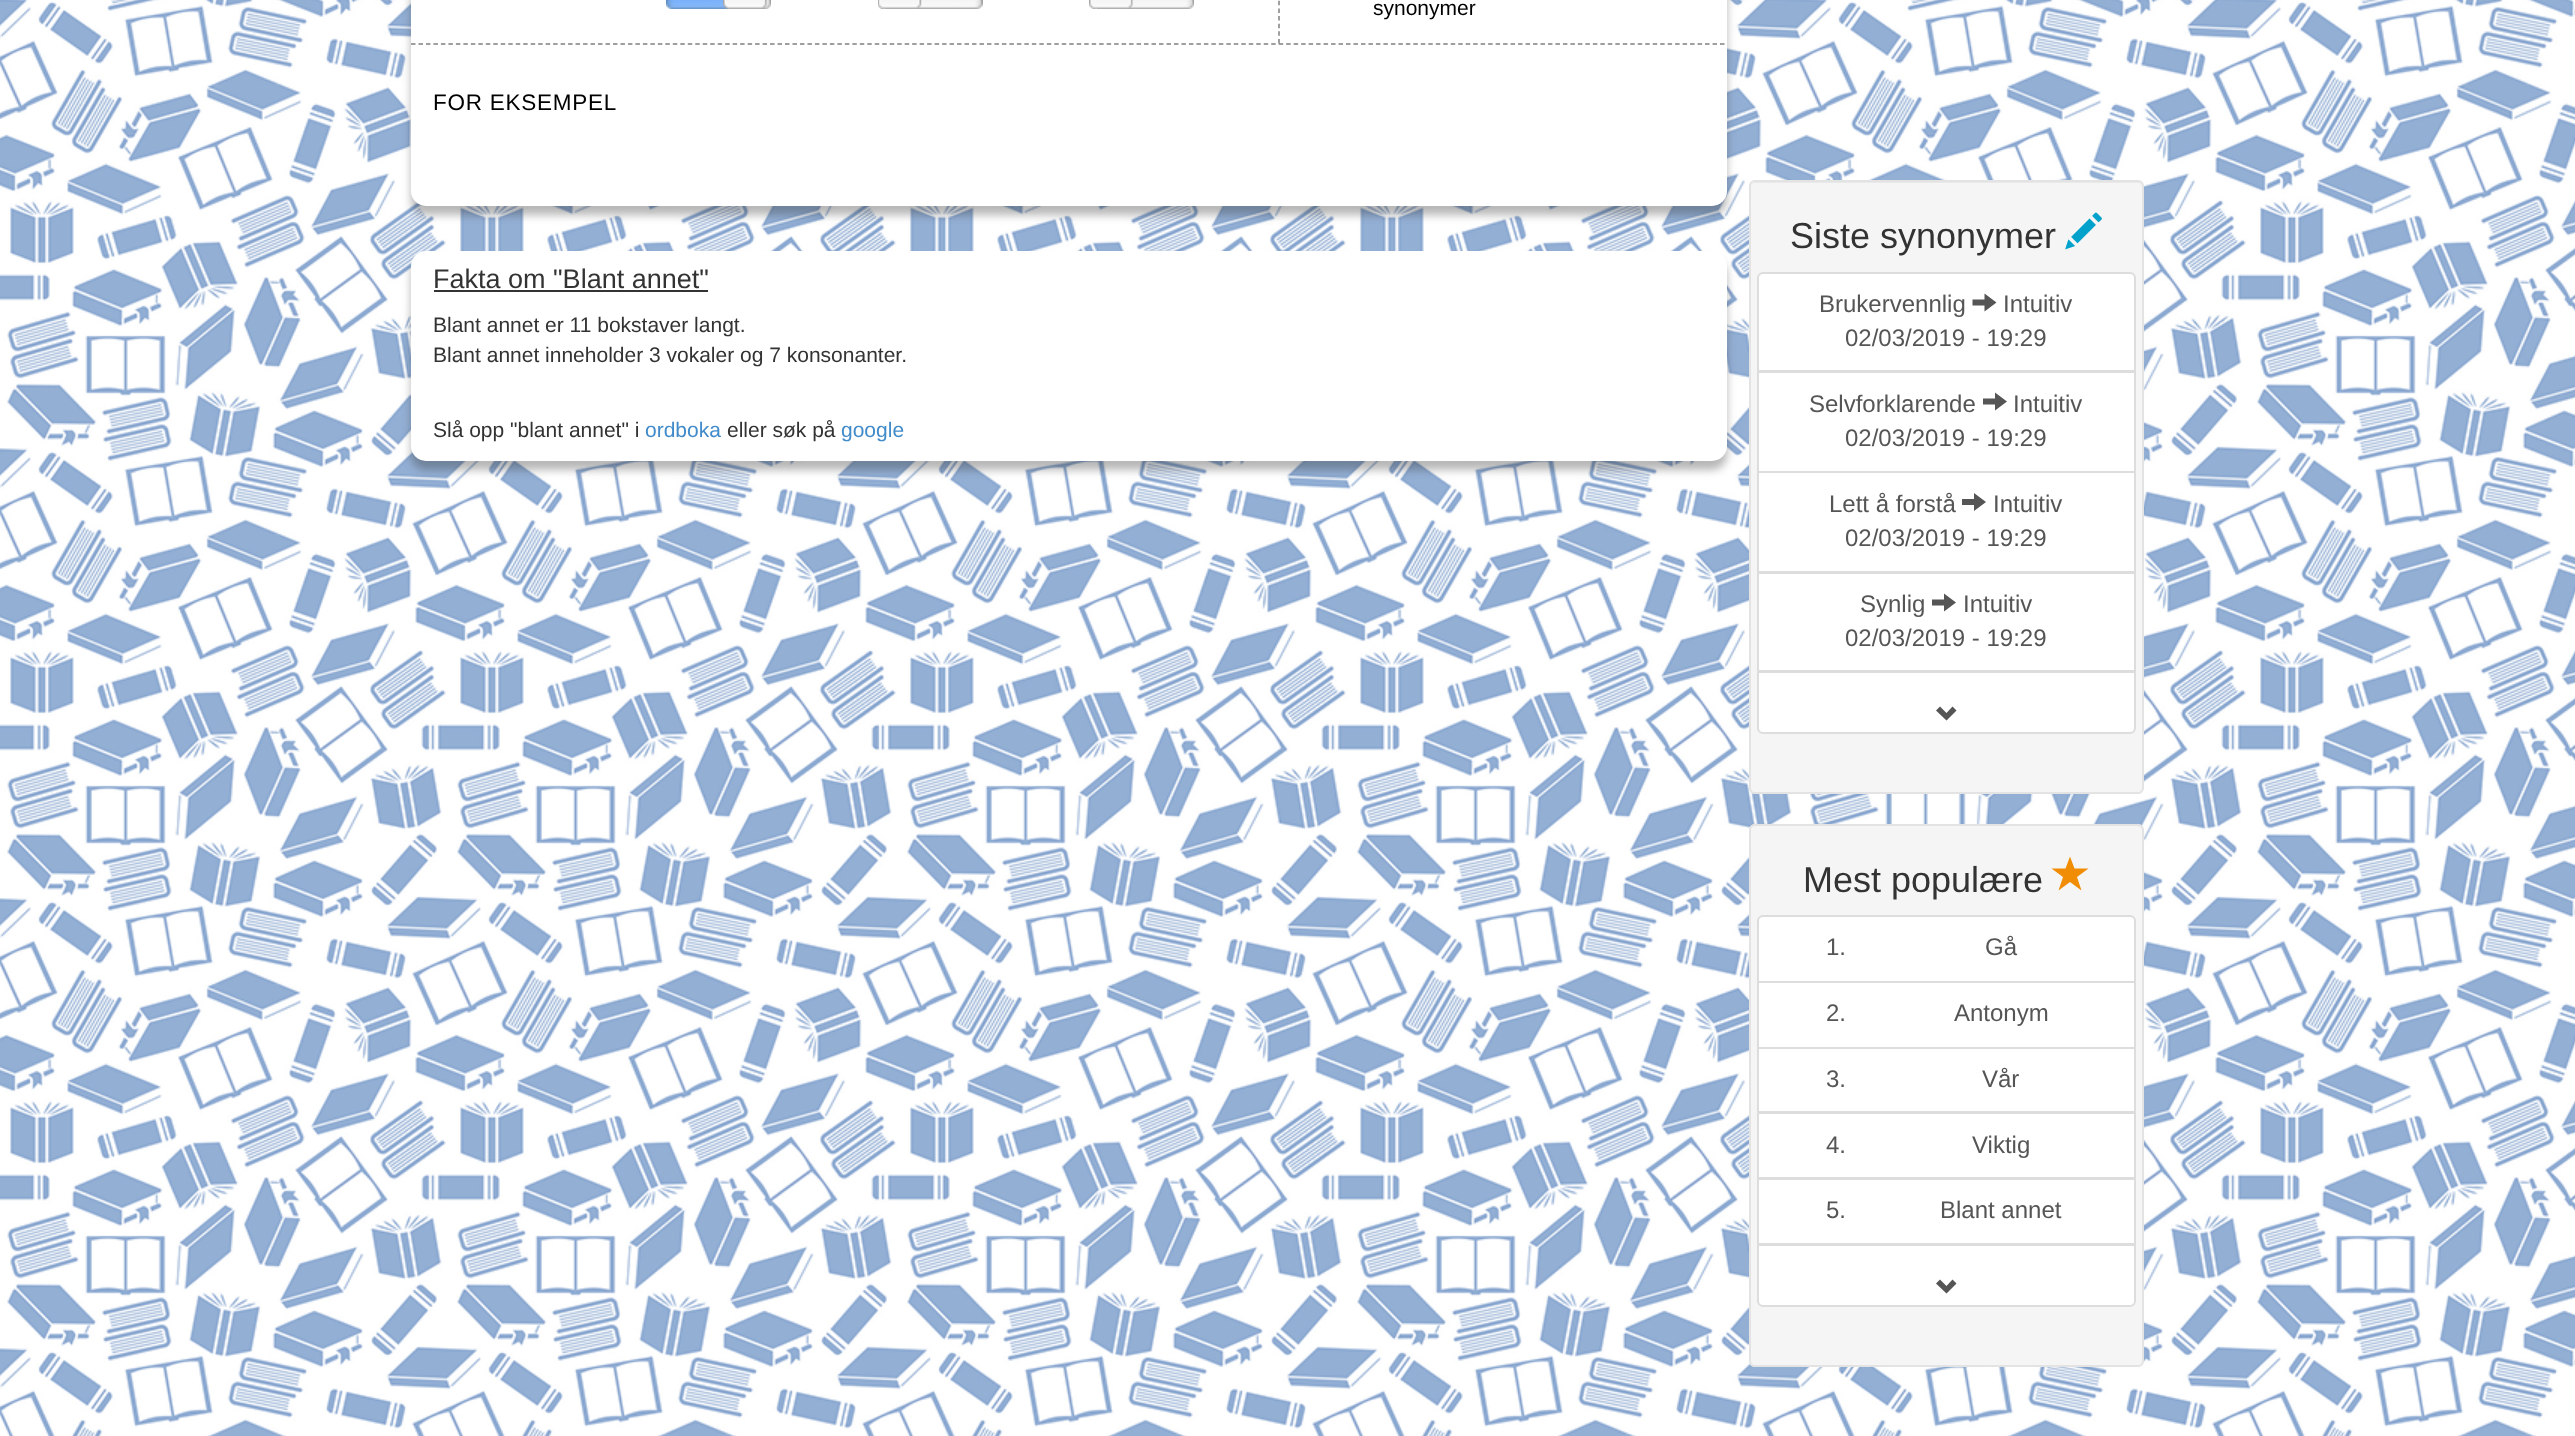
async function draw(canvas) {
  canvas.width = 2575
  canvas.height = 1436
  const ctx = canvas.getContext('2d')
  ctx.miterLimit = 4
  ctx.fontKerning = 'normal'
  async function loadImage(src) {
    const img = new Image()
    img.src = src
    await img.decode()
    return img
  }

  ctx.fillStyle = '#fff'
  ctx.fillRect(0, 0, 2575, 1436)
  ctx.drawImage(await loadImage('image0.png'), 0, 0, 2575, 1436)
  ctx.fillStyle = '#32323259'
  ctx.filter = 'blur(4px)'
  ctx.beginPath()
  ctx.roundRect(411, -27, 1316, 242, 15)
  ctx.fill()
  ctx.filter = 'none'
  ctx.fillStyle = '#fff'
  ctx.beginPath()
  ctx.roundRect(411, -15, 1316, 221, 15)
  ctx.fill()
  ctx.beginPath()
  ctx.moveTo(1279, -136.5)
  ctx.lineTo(1279, 43.5)
  ctx.strokeStyle = '#808080'
  ctx.lineWidth = 1.5
  ctx.setLineDash([4.5, 3.13])
  ctx.stroke()
  ctx.drawImage(await loadImage('image5.png'), 728, 0, 43, 9)
  ctx.drawImage(await loadImage('image1.png'), 666, 0, 64, 9)
  ctx.drawImage(await loadImage('image2.png'), 723, 0, 7, 9)
  ctx.drawImage(await loadImage('image3.png'), 760, 0, 7, 9)
  ctx.drawImage(await loadImage('image4.png'), 728, 0, 35, 9)
  ctx.drawImage(await loadImage('image6.png'), 878, 0, 6, 9)
  ctx.drawImage(await loadImage('image9.png'), 885, 0, 98, 9)
  ctx.drawImage(await loadImage('image7.png'), 915, 0, 7, 9)
  ctx.drawImage(await loadImage('image8.png'), 883, 0, 34, 9)
  ctx.drawImage(await loadImage('image10.png'), 1089, 0, 7, 9)
  ctx.drawImage(await loadImage('image13.png'), 1097, 0, 97, 9)
  ctx.drawImage(await loadImage('image11.png'), 1126, 0, 7, 9)
  ctx.drawImage(await loadImage('image12.png'), 1094, 0, 35, 9)
  ctx.font = '21px Liberation Sans'
  ctx.fillStyle = '#000'
  ctx.fillText('synonymer', 1373, 15)
  ctx.beginPath()
  ctx.moveTo(411, 44)
  ctx.lineTo(1726.5, 44)
  ctx.setLineDash([4.5, 2.98])
  ctx.stroke()
  ctx.letterSpacing = '0.75px'
  ctx.font = '22.5px Liberation Sans'
  ctx.fillText('FOR EKSEMPEL', 433, 110)
  ctx.fillStyle = '#32323259'
  ctx.filter = 'blur(4px)'
  ctx.beginPath()
  ctx.roundRect(411, 260, 1316, 210, 15)
  ctx.fill()
  ctx.filter = 'none'
  ctx.fillStyle = '#fff'
  ctx.beginPath()
  ctx.roundRect(411, 251, 1316, 210, 15)
  ctx.fill()
  ctx.letterSpacing = '0px'
  ctx.font = '27px Liberation Sans'
  ctx.fillStyle = '#333'
  ctx.fillText('Fakta om "Blant annet"', 433, 288)
  ctx.fillRect(434, 290, 274, 2)
  ctx.font = '21px Liberation Sans'
  ctx.fillText('Blant annet er 11 bokstaver langt.', 433, 332)
  ctx.fillText('Blant annet inneholder 3 vokaler og 7 konsonanter.', 433, 362)
  ctx.fillText('Slå opp "blant annet" i', 433, 437)
  ctx.fillStyle = '#428bca'
  ctx.fillText('ordboka', 645, 437)
  ctx.fillStyle = '#333'
  ctx.fillText('eller søk på', 727, 437)
  ctx.fillStyle = '#428bca'
  ctx.fillText('google', 841, 437)
  ctx.fillStyle = '#f5f5f5'
  ctx.beginPath()
  ctx.roundRect(1749, 180, 395, 614, 6)
  ctx.fill()
  ctx.fillStyle = '#e9e9e9'
  ctx.beginPath()
  ctx.moveTo(1755, 183)
  ctx.lineTo(2138, 183)
  ctx.bezierCurveTo(2140, 183, 2142, 185, 2142, 188)
  ctx.lineTo(2142, 187)
  ctx.bezierCurveTo(2142, 184, 2140, 182, 2137, 182)
  ctx.lineTo(1756, 182)
  ctx.bezierCurveTo(1754, 182, 1753, 183, 1752, 184)
  ctx.closePath()
  ctx.fill()
  ctx.beginPath()
  ctx.roundRect(1750, 181, 393, 612, 5)
  ctx.strokeStyle = '#e3e3e3'
  ctx.lineWidth = 2
  ctx.setLineDash([])
  ctx.stroke()
  ctx.font = '36px Liberation Sans'
  ctx.fillStyle = '#333'
  ctx.fillText('Siste synonymer', 1790, 248)
  ctx.drawImage(await loadImage('image14.png'), 2065, 212, 37, 38)
  ctx.fillStyle = '#fff'
  ctx.beginPath()
  ctx.roundRect(1758, 273, 377, 98, [5, 5, 0, 0])
  ctx.fill()
  ctx.strokeStyle = '#ddd'
  ctx.stroke()
  ctx.font = '24px Liberation Sans'
  ctx.fillStyle = '#555'
  ctx.fillText('Brukervennlig', 1819, 312)
  ctx.beginPath()
  ctx.moveTo(1972.5, 305.5)
  ctx.lineTo(1972.5, 299.5)
  ctx.lineTo(1984.5, 299.5)
  ctx.lineTo(1984.5, 293.5)
  ctx.lineTo(1996.5, 302.5)
  ctx.lineTo(1984.5, 311.5)
  ctx.lineTo(1984.5, 305.5)
  ctx.closePath()
  ctx.fill()
  ctx.fillText('Intuitiv', 2003, 312)
  ctx.fillText('02/03/2019 - 19:29', 1845, 346)
  ctx.fillStyle = '#fff'
  ctx.beginPath()
  ctx.rect(1758, 372, 377, 100)
  ctx.fill()
  ctx.stroke()
  ctx.fillStyle = '#555'
  ctx.fillText('Selvforklarende', 1809, 412)
  ctx.beginPath()
  ctx.moveTo(1983, 404.5)
  ctx.lineTo(1983, 398.5)
  ctx.lineTo(1995, 398.5)
  ctx.lineTo(1995, 392.5)
  ctx.lineTo(2007, 401.5)
  ctx.lineTo(1995, 410.5)
  ctx.lineTo(1995, 404.5)
  ctx.closePath()
  ctx.fill()
  ctx.fillText('Intuitiv', 2013, 412)
  ctx.fillText('02/03/2019 - 19:29', 1845, 446)
  ctx.fillStyle = '#fff'
  ctx.beginPath()
  ctx.rect(1758, 472, 377, 100)
  ctx.fill()
  ctx.stroke()
  ctx.fillStyle = '#555'
  ctx.fillText('Lett å forstå', 1829, 512)
  ctx.beginPath()
  ctx.moveTo(1962, 505)
  ctx.lineTo(1962, 499)
  ctx.lineTo(1974, 499)
  ctx.lineTo(1974, 493)
  ctx.lineTo(1986, 502)
  ctx.lineTo(1974, 511)
  ctx.lineTo(1974, 505)
  ctx.closePath()
  ctx.fill()
  ctx.fillText('Intuitiv', 1993, 512)
  ctx.fillText('02/03/2019 - 19:29', 1845, 546)
  ctx.fillStyle = '#fff'
  ctx.beginPath()
  ctx.rect(1758, 573, 377, 98)
  ctx.fill()
  ctx.stroke()
  ctx.fillStyle = '#555'
  ctx.fillText('Synlig', 1860, 612)
  ctx.beginPath()
  ctx.moveTo(1932, 605.5)
  ctx.lineTo(1932, 599.5)
  ctx.lineTo(1944, 599.5)
  ctx.lineTo(1944, 593.5)
  ctx.lineTo(1956, 602.5)
  ctx.lineTo(1944, 611.5)
  ctx.lineTo(1944, 605.5)
  ctx.closePath()
  ctx.fill()
  ctx.fillText('Intuitiv', 1963, 612)
  ctx.fillText('02/03/2019 - 19:29', 1845, 646)
  ctx.fillStyle = '#fff'
  ctx.beginPath()
  ctx.roundRect(1758, 672, 377, 61, [0, 0, 5, 5])
  ctx.fill()
  ctx.stroke()
  ctx.fillStyle = '#555'
  ctx.beginPath()
  ctx.moveTo(1936, 710.5)
  ctx.lineTo(1946.5, 720.5)
  ctx.lineTo(1956.5, 710.5)
  ctx.lineTo(1952.5, 706.5)
  ctx.lineTo(1946.5, 713)
  ctx.lineTo(1940, 706.5)
  ctx.closePath()
  ctx.fill()
  ctx.fillStyle = '#f5f5f5'
  ctx.beginPath()
  ctx.roundRect(1749, 824, 395, 543, 6)
  ctx.fill()
  ctx.fillStyle = '#e9e9e9'
  ctx.beginPath()
  ctx.moveTo(1755, 826)
  ctx.lineTo(2138, 826)
  ctx.bezierCurveTo(2140, 826, 2142, 829, 2142, 831)
  ctx.lineTo(2142, 830)
  ctx.bezierCurveTo(2142, 827, 2140, 825, 2137, 825)
  ctx.lineTo(1756, 825)
  ctx.bezierCurveTo(1754, 825, 1752, 826, 1751, 828)
  ctx.bezierCurveTo(1752, 827, 1754, 826, 1755, 826)
  ctx.closePath()
  ctx.fill()
  ctx.beginPath()
  ctx.roundRect(1750, 825, 393, 541, 5)
  ctx.strokeStyle = '#e3e3e3'
  ctx.stroke()
  ctx.font = '36px Liberation Sans'
  ctx.fillStyle = '#333'
  ctx.fillText('Mest populære', 1803, 892)
  ctx.fillStyle = '#f18d05'
  ctx.beginPath()
  ctx.moveTo(2051.5, 868.5)
  ctx.lineTo(2065.5, 868.5)
  ctx.lineTo(2070, 856.5)
  ctx.lineTo(2074.5, 868.5)
  ctx.lineTo(2088.5, 868.5)
  ctx.lineTo(2077, 877)
  ctx.lineTo(2081.5, 890.5)
  ctx.lineTo(2070, 882)
  ctx.lineTo(2058.5, 890.5)
  ctx.lineTo(2063, 877)
  ctx.closePath()
  ctx.moveTo(2058.5, 890.5)
  ctx.lineTo(2058.5, 890.5)
  ctx.closePath()
  ctx.fill()
  ctx.fillStyle = '#fff'
  ctx.beginPath()
  ctx.roundRect(1758, 916, 377, 66, [5, 5, 0, 0])
  ctx.fill()
  ctx.strokeStyle = '#ddd'
  ctx.stroke()
  ctx.font = '24px Liberation Sans'
  ctx.fillStyle = '#555'
  ctx.fillText('1.', 1826, 955)
  ctx.fillText('Gå', 1985, 955)
  ctx.fillStyle = '#fff'
  ctx.beginPath()
  ctx.rect(1758, 982, 377, 66)
  ctx.fill()
  ctx.stroke()
  ctx.fillStyle = '#555'
  ctx.fillText('2.', 1826, 1021)
  ctx.fillText('Antonym', 1954, 1021)
  ctx.fillStyle = '#fff'
  ctx.beginPath()
  ctx.rect(1758, 1048, 377, 64)
  ctx.fill()
  ctx.stroke()
  ctx.fillStyle = '#555'
  ctx.fillText('3.', 1826, 1087)
  ctx.fillText('Vår', 1982, 1087)
  ctx.fillStyle = '#fff'
  ctx.beginPath()
  ctx.rect(1758, 1113, 377, 65)
  ctx.fill()
  ctx.stroke()
  ctx.fillStyle = '#555'
  ctx.fillText('4.', 1826, 1153)
  ctx.fillText('Viktig', 1972, 1153)
  ctx.fillStyle = '#fff'
  ctx.beginPath()
  ctx.rect(1758, 1179, 377, 65)
  ctx.fill()
  ctx.stroke()
  ctx.fillStyle = '#555'
  ctx.fillText('5.', 1826, 1218)
  ctx.fillText('Blant annet', 1940, 1218)
  ctx.fillStyle = '#fff'
  ctx.beginPath()
  ctx.roundRect(1758, 1245, 377, 61, [0, 0, 5, 5])
  ctx.fill()
  ctx.stroke()
  ctx.fillStyle = '#555'
  ctx.beginPath()
  ctx.moveTo(1936, 1283.5)
  ctx.lineTo(1946.5, 1293.5)
  ctx.lineTo(1956.5, 1283.5)
  ctx.lineTo(1952.5, 1279.5)
  ctx.lineTo(1946.5, 1286)
  ctx.lineTo(1940, 1279.5)
  ctx.closePath()
  ctx.fill()
}

draw(document.querySelector('canvas'))
